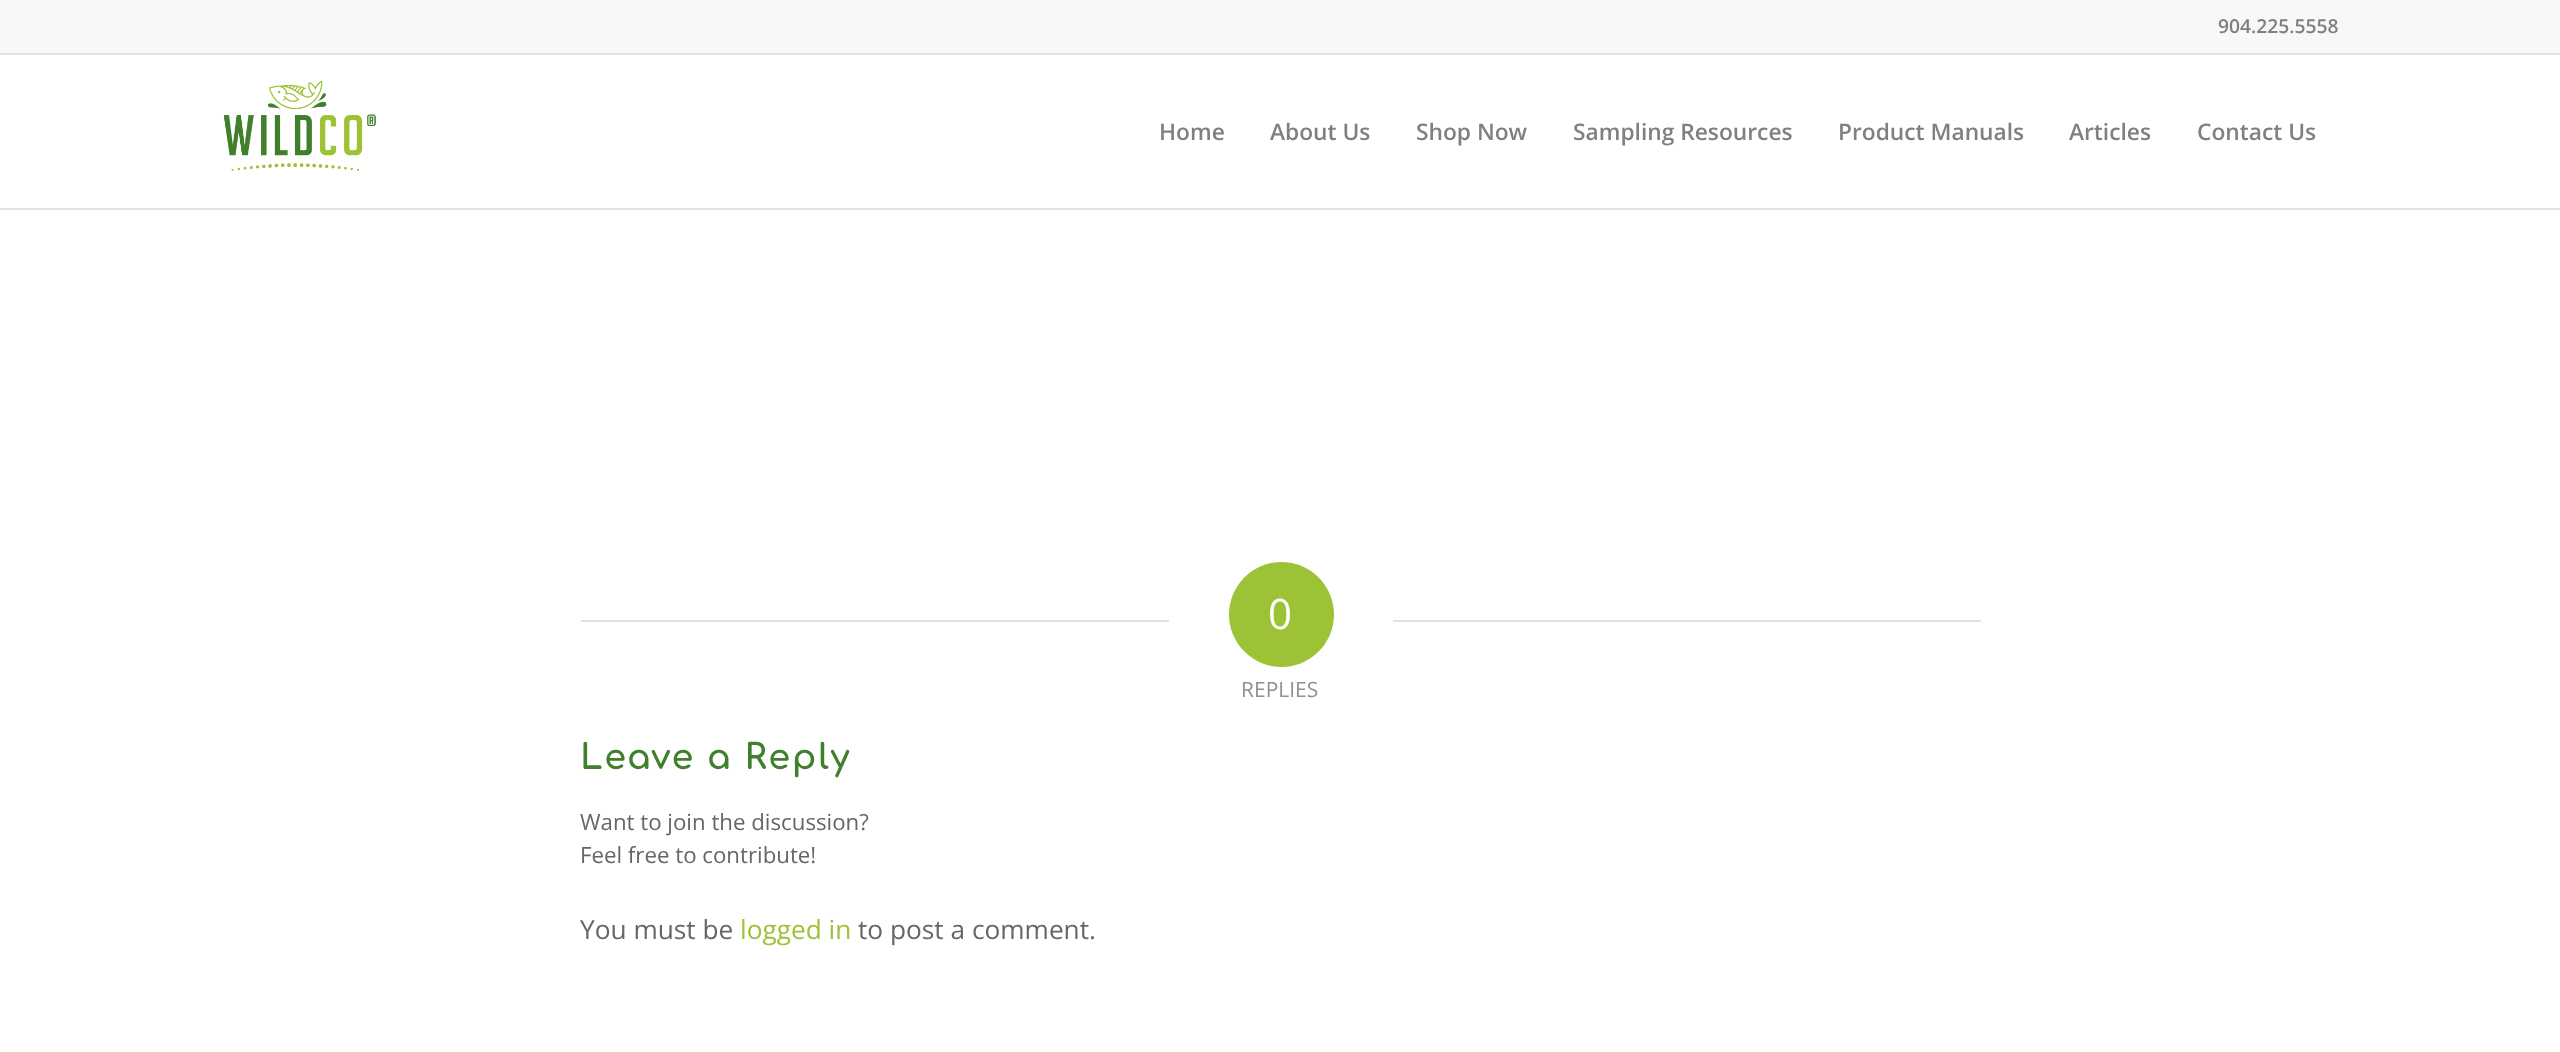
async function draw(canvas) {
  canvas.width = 2560
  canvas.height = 1052
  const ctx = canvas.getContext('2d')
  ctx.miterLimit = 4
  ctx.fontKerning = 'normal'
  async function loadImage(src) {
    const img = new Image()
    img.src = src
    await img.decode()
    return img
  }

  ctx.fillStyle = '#fff'
  ctx.fillRect(0, 0, 2560, 1052)
  ctx.fillStyle = '#f8f8f8'
  ctx.fillRect(0, 0, 2560, 53)
  ctx.fillStyle = '#e1e1e1'
  ctx.fillRect(0, 53, 2560, 2)
  ctx.font = '600 19.25px Open Sans'
  ctx.fillStyle = '#808080'
  ctx.fillText('904.225.5558', 2218, 33)
  ctx.fillStyle = '#e1e1e1'
  ctx.fillRect(0, 208, 2560, 2)
  ctx.drawImage(await loadImage('image0.png'), 223, 80, 153, 91)
  ctx.font = '600 22.75px Open Sans'
  ctx.fillStyle = '#808080'
  ctx.fillText('Home', 1159, 140)
  ctx.fillText('About Us', 1270, 140)
  ctx.fillText('Shop Now', 1416, 140)
  ctx.fillText('Sampling Resources', 1573, 140)
  ctx.fillText('Product Manuals', 1838, 140)
  ctx.fillText('Articles', 2069, 140)
  ctx.fillText('Contact Us', 2197, 140)
  ctx.fillStyle = '#e1e1e1'
  ctx.fillRect(581, 620, 588, 2)
  ctx.fillStyle = '#9cc235'
  ctx.beginPath()
  ctx.arc(1281.5, 614.5, 52.5, 0, 2 * Math.PI)
  ctx.fill()
  ctx.font = '42px Open Sans'
  ctx.fillStyle = '#fff'
  ctx.fillText('0', 1268, 629)
  ctx.fillStyle = '#e1e1e1'
  ctx.fillRect(1393, 620, 588, 2)
  ctx.font = '21px Open Sans'
  ctx.fillStyle = '#919191'
  ctx.fillText('REPLIES', 1241, 697)
  ctx.letterSpacing = '1.75px'
  ctx.font = 'bold 35px Comfortaa'
  ctx.fillStyle = '#40802c'
  ctx.fillText('Leave a Reply', 580, 769)
  ctx.letterSpacing = '0px'
  ctx.font = '22.25px Open Sans'
  ctx.fillStyle = '#666'
  ctx.fillText('Want to join the discussion?', 580, 830)
  ctx.fillText('Feel free to contribute!', 580, 863)
  ctx.font = '26.25px Open Sans'
  ctx.fillText('You must be', 580, 939)
  ctx.fillStyle = '#9cc235'
  ctx.fillText('logged in', 740, 939)
  ctx.fillStyle = '#666'
  ctx.fillText('to post a comment.', 858, 939)
}

draw(document.querySelector('canvas'))
